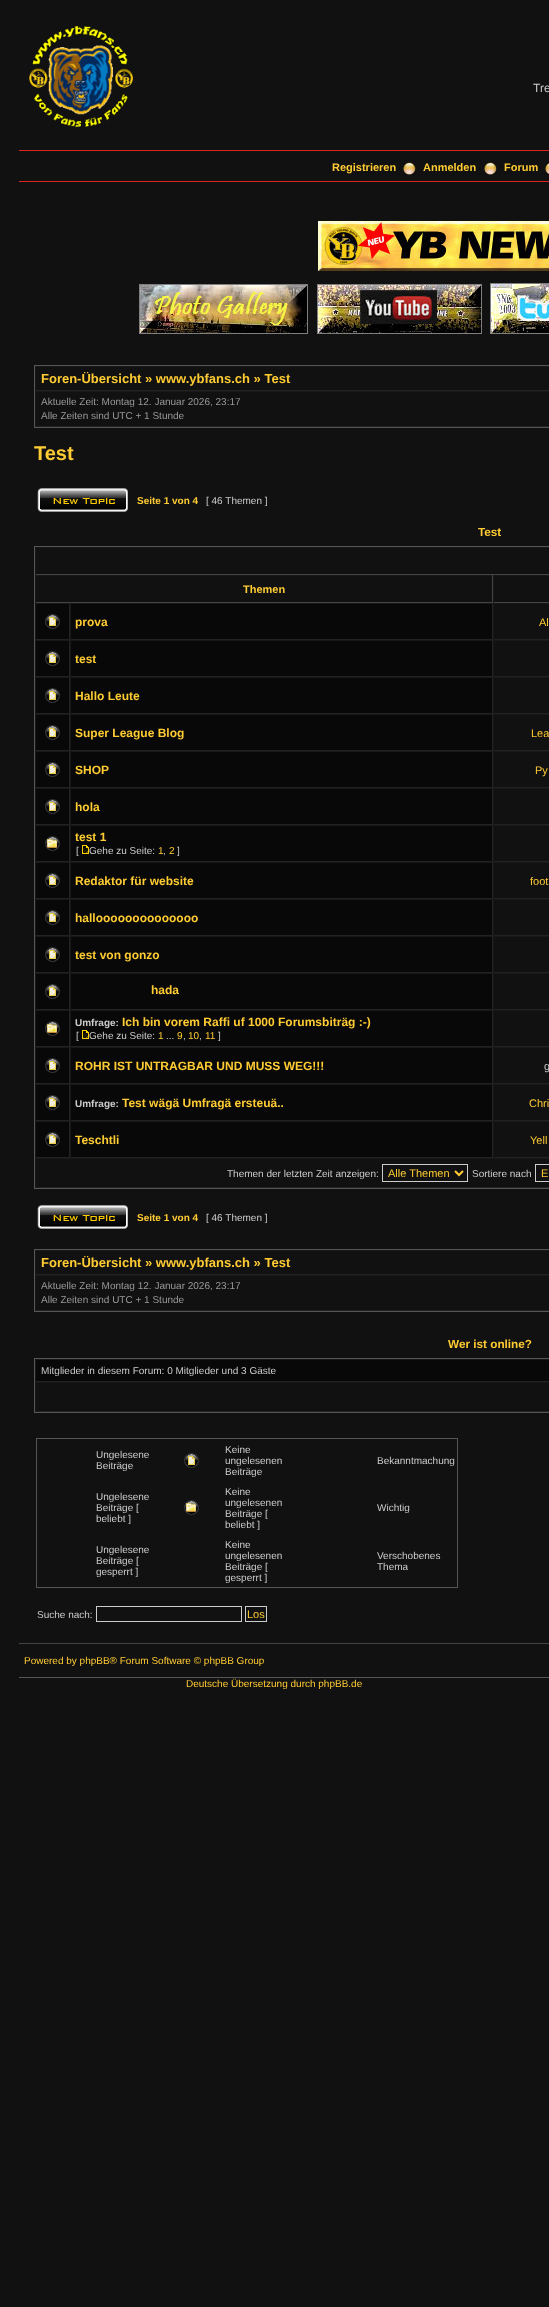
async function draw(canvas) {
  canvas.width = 549
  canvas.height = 2307
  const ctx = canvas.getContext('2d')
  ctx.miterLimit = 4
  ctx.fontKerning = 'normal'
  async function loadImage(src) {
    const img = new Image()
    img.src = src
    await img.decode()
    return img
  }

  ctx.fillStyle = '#111'
  ctx.fillRect(0, 0, 549, 2307)
  ctx.drawImage(await loadImage('image0.png'), 29, 25, 104, 102)
  ctx.font = '12px Liberation Sans'
  ctx.fillStyle = '#ccc'
  ctx.fillText('Tre', 533, 92)
  ctx.fillStyle = '#d22'
  ctx.fillRect(19, 150, 530, 1)
  ctx.fillRect(19, 181, 530, 1)
  ctx.font = 'bold 11px Liberation Sans'
  ctx.fillStyle = '#fc3'
  ctx.fillText('Registrieren', 332, 171)
  ctx.drawImage(await loadImage('image1.png'), 403, 162, 13, 13)
  ctx.fillText('Anmelden', 423, 171)
  ctx.drawImage(await loadImage('image1.png'), 484, 162, 13, 13)
  ctx.fillText('Forum', 504, 171)
  ctx.drawImage(await loadImage('image2.png'), 545, 163, 4, 11)
  ctx.drawImage(await loadImage('image3.png'), 318, 221, 231, 50)
  ctx.drawImage(await loadImage('image4.png'), 139, 284, 169, 50)
  ctx.drawImage(await loadImage('image5.png'), 317, 284, 165, 50)
  ctx.drawImage(await loadImage('image6.png'), 490, 283, 59, 51)
  ctx.strokeStyle = '#555'
  ctx.strokeRect(34.5, 365.5, 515, 62)
  ctx.fillStyle = '#181818'
  ctx.fillRect(35, 366, 514, 1)
  ctx.fillStyle = '#222'
  ctx.fillRect(35, 390, 514, 1)
  ctx.fillStyle = '#181818'
  ctx.fillRect(35, 366, 1, 25)
  ctx.font = 'bold 13px Liberation Sans'
  ctx.fillStyle = '#fc3'
  ctx.fillText('Foren-Übersicht » www.ybfans.ch » Test', 41, 383)
  ctx.fillStyle = '#181818'
  ctx.fillRect(35, 391, 514, 1)
  ctx.fillStyle = '#222'
  ctx.fillRect(35, 426, 514, 1)
  ctx.fillStyle = '#181818'
  ctx.fillRect(35, 391, 1, 36)
  ctx.font = '10px Liberation Sans'
  ctx.fillStyle = '#999'
  ctx.fillText('Aktuelle Zeit: Montag 12. Januar 2026, 23:17', 41, 405)
  ctx.fillText('Alle Zeiten sind UTC + 1 Stunde', 41, 419)
  ctx.font = 'bold 20px Liberation Sans'
  ctx.fillStyle = '#fc3'
  ctx.fillText('Test', 34, 460)
  ctx.drawImage(await loadImage('image7.png'), 37, 488, 91, 24)
  ctx.font = 'bold 10px Liberation Sans'
  ctx.fillText('Seite 1 von 4', 137, 504)
  ctx.font = '10px Liberation Sans'
  ctx.fillStyle = '#ccc'
  ctx.fillText('[ 46 Themen ]', 206, 504)
  ctx.font = 'bold 11.75px Liberation Sans'
  ctx.fillStyle = '#fc3'
  ctx.fillText('Test', 478, 536)
  ctx.strokeRect(34.5, 546.5, 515, 642)
  ctx.fillStyle = '#181818'
  ctx.fillRect(35, 547, 514, 1)
  ctx.fillStyle = '#444'
  ctx.fillRect(35, 574, 514, 1)
  ctx.fillStyle = '#181818'
  ctx.fillRect(35, 547, 1, 28)
  ctx.fillRect(35, 575, 514, 1)
  ctx.fillStyle = '#444'
  ctx.fillRect(492, 575, 1, 28)
  ctx.fillRect(35, 602, 514, 1)
  ctx.fillStyle = '#181818'
  ctx.fillRect(35, 575, 1, 28)
  ctx.font = 'bold 11px Liberation Sans'
  ctx.fillStyle = '#fc3'
  ctx.fillText('Themen', 243, 593)
  ctx.fillStyle = '#181818'
  ctx.fillRect(493, 575, 1, 28)
  ctx.fillStyle = '#080808'
  ctx.fillRect(36, 604, 33, 35)
  ctx.fillStyle = '#181818'
  ctx.fillRect(35, 603, 514, 1)
  ctx.fillStyle = '#222'
  ctx.fillRect(69, 603, 1, 37)
  ctx.fillRect(35, 639, 35, 1)
  ctx.fillStyle = '#181818'
  ctx.fillRect(35, 603, 1, 37)
  ctx.drawImage(await loadImage('image8.png'), 45, 614, 15, 15)
  ctx.fillStyle = '#080808'
  ctx.fillRect(71, 604, 421, 35)
  ctx.fillStyle = '#222'
  ctx.fillRect(492, 603, 1, 37)
  ctx.fillRect(70, 639, 479, 1)
  ctx.fillStyle = '#181818'
  ctx.fillRect(70, 603, 1, 37)
  ctx.font = 'bold 12px Liberation Sans'
  ctx.fillStyle = '#fc3'
  ctx.fillText('prova', 75, 626)
  ctx.fillStyle = '#181818'
  ctx.fillRect(493, 603, 1, 37)
  ctx.font = '11px Liberation Sans'
  ctx.fillStyle = '#fc3'
  ctx.fillText('Al', 539, 626)
  ctx.fillStyle = '#080808'
  ctx.fillRect(36, 641, 33, 35)
  ctx.fillStyle = '#181818'
  ctx.fillRect(35, 640, 514, 1)
  ctx.fillStyle = '#222'
  ctx.fillRect(69, 640, 1, 37)
  ctx.fillRect(35, 676, 35, 1)
  ctx.fillStyle = '#181818'
  ctx.fillRect(35, 640, 1, 37)
  ctx.drawImage(await loadImage('image8.png'), 45, 651, 15, 15)
  ctx.fillStyle = '#080808'
  ctx.fillRect(71, 641, 421, 35)
  ctx.fillStyle = '#222'
  ctx.fillRect(492, 640, 1, 37)
  ctx.fillRect(70, 676, 479, 1)
  ctx.fillStyle = '#181818'
  ctx.fillRect(70, 640, 1, 37)
  ctx.font = 'bold 12px Liberation Sans'
  ctx.fillStyle = '#fc3'
  ctx.fillText('test', 75, 663)
  ctx.fillStyle = '#181818'
  ctx.fillRect(493, 640, 1, 37)
  ctx.fillStyle = '#080808'
  ctx.fillRect(36, 678, 33, 35)
  ctx.fillStyle = '#181818'
  ctx.fillRect(35, 677, 514, 1)
  ctx.fillStyle = '#222'
  ctx.fillRect(69, 677, 1, 37)
  ctx.fillRect(35, 713, 35, 1)
  ctx.fillStyle = '#181818'
  ctx.fillRect(35, 677, 1, 37)
  ctx.drawImage(await loadImage('image8.png'), 45, 688, 15, 15)
  ctx.fillStyle = '#080808'
  ctx.fillRect(71, 678, 421, 35)
  ctx.fillStyle = '#222'
  ctx.fillRect(492, 677, 1, 37)
  ctx.fillRect(70, 713, 479, 1)
  ctx.fillStyle = '#181818'
  ctx.fillRect(70, 677, 1, 37)
  ctx.fillStyle = '#fc3'
  ctx.fillText('Hallo Leute', 75, 700)
  ctx.fillStyle = '#181818'
  ctx.fillRect(493, 677, 1, 37)
  ctx.fillStyle = '#080808'
  ctx.fillRect(36, 715, 33, 35)
  ctx.fillStyle = '#181818'
  ctx.fillRect(35, 714, 514, 1)
  ctx.fillStyle = '#222'
  ctx.fillRect(69, 714, 1, 37)
  ctx.fillRect(35, 750, 35, 1)
  ctx.fillStyle = '#181818'
  ctx.fillRect(35, 714, 1, 37)
  ctx.drawImage(await loadImage('image8.png'), 45, 725, 15, 15)
  ctx.fillStyle = '#080808'
  ctx.fillRect(71, 715, 421, 35)
  ctx.fillStyle = '#222'
  ctx.fillRect(492, 714, 1, 37)
  ctx.fillRect(70, 750, 479, 1)
  ctx.fillStyle = '#181818'
  ctx.fillRect(70, 714, 1, 37)
  ctx.fillStyle = '#fc3'
  ctx.fillText('Super League Blog', 75, 737)
  ctx.fillStyle = '#181818'
  ctx.fillRect(493, 714, 1, 37)
  ctx.font = '11px Liberation Sans'
  ctx.fillStyle = '#fc3'
  ctx.fillText('Lea', 531, 737)
  ctx.fillStyle = '#080808'
  ctx.fillRect(36, 752, 33, 35)
  ctx.fillStyle = '#181818'
  ctx.fillRect(35, 751, 514, 1)
  ctx.fillStyle = '#222'
  ctx.fillRect(69, 751, 1, 37)
  ctx.fillRect(35, 787, 35, 1)
  ctx.fillStyle = '#181818'
  ctx.fillRect(35, 751, 1, 37)
  ctx.drawImage(await loadImage('image8.png'), 45, 762, 15, 15)
  ctx.fillStyle = '#080808'
  ctx.fillRect(71, 752, 421, 35)
  ctx.fillStyle = '#222'
  ctx.fillRect(492, 751, 1, 37)
  ctx.fillRect(70, 787, 479, 1)
  ctx.fillStyle = '#181818'
  ctx.fillRect(70, 751, 1, 37)
  ctx.font = 'bold 12px Liberation Sans'
  ctx.fillStyle = '#fc3'
  ctx.fillText('SHOP', 75, 774)
  ctx.fillStyle = '#181818'
  ctx.fillRect(493, 751, 1, 37)
  ctx.font = '11px Liberation Sans'
  ctx.fillStyle = '#fc3'
  ctx.fillText('Py', 535, 774)
  ctx.fillStyle = '#080808'
  ctx.fillRect(36, 789, 33, 35)
  ctx.fillStyle = '#181818'
  ctx.fillRect(35, 788, 514, 1)
  ctx.fillStyle = '#222'
  ctx.fillRect(69, 788, 1, 37)
  ctx.fillRect(35, 824, 35, 1)
  ctx.fillStyle = '#181818'
  ctx.fillRect(35, 788, 1, 37)
  ctx.drawImage(await loadImage('image8.png'), 45, 799, 15, 15)
  ctx.fillStyle = '#080808'
  ctx.fillRect(71, 789, 421, 35)
  ctx.fillStyle = '#222'
  ctx.fillRect(492, 788, 1, 37)
  ctx.fillRect(70, 824, 479, 1)
  ctx.fillStyle = '#181818'
  ctx.fillRect(70, 788, 1, 37)
  ctx.font = 'bold 12px Liberation Sans'
  ctx.fillStyle = '#fc3'
  ctx.fillText('hola', 75, 811)
  ctx.fillStyle = '#181818'
  ctx.fillRect(493, 788, 1, 37)
  ctx.fillStyle = '#080808'
  ctx.fillRect(36, 826, 33, 35)
  ctx.fillStyle = '#181818'
  ctx.fillRect(35, 825, 514, 1)
  ctx.fillStyle = '#222'
  ctx.fillRect(69, 825, 1, 37)
  ctx.fillRect(35, 861, 35, 1)
  ctx.fillStyle = '#181818'
  ctx.fillRect(35, 825, 1, 37)
  ctx.drawImage(await loadImage('image9.png'), 45, 836, 15, 15)
  ctx.fillStyle = '#080808'
  ctx.fillRect(71, 826, 421, 35)
  ctx.fillStyle = '#222'
  ctx.fillRect(492, 825, 1, 37)
  ctx.fillRect(70, 861, 479, 1)
  ctx.fillStyle = '#181818'
  ctx.fillRect(70, 825, 1, 37)
  ctx.fillStyle = '#fc3'
  ctx.fillText('test 1', 75, 841)
  ctx.font = '10px Liberation Sans'
  ctx.fillStyle = '#ccc'
  ctx.fillText('[', 76, 854)
  ctx.drawImage(await loadImage('image10.png'), 82, 845, 7, 9)
  ctx.fillText('Gehe zu Seite:', 89, 854)
  ctx.fillStyle = '#fc3'
  ctx.fillText('1', 158, 854)
  ctx.fillStyle = '#ccc'
  ctx.fillText(',', 163, 854)
  ctx.fillStyle = '#fc3'
  ctx.fillText('2', 169, 854)
  ctx.fillStyle = '#ccc'
  ctx.fillText(']', 177, 854)
  ctx.fillStyle = '#181818'
  ctx.fillRect(493, 825, 1, 37)
  ctx.fillStyle = '#080808'
  ctx.fillRect(36, 863, 33, 35)
  ctx.fillStyle = '#181818'
  ctx.fillRect(35, 862, 514, 1)
  ctx.fillStyle = '#222'
  ctx.fillRect(69, 862, 1, 37)
  ctx.fillRect(35, 898, 35, 1)
  ctx.fillStyle = '#181818'
  ctx.fillRect(35, 862, 1, 37)
  ctx.drawImage(await loadImage('image8.png'), 45, 873, 15, 15)
  ctx.fillStyle = '#080808'
  ctx.fillRect(71, 863, 421, 35)
  ctx.fillStyle = '#222'
  ctx.fillRect(492, 862, 1, 37)
  ctx.fillRect(70, 898, 479, 1)
  ctx.fillStyle = '#181818'
  ctx.fillRect(70, 862, 1, 37)
  ctx.font = 'bold 12px Liberation Sans'
  ctx.fillStyle = '#fc3'
  ctx.fillText('Redaktor für website', 75, 885)
  ctx.fillStyle = '#181818'
  ctx.fillRect(493, 862, 1, 37)
  ctx.font = '11px Liberation Sans'
  ctx.fillStyle = '#fc3'
  ctx.fillText('foot', 530, 885)
  ctx.fillStyle = '#080808'
  ctx.fillRect(36, 900, 33, 35)
  ctx.fillStyle = '#181818'
  ctx.fillRect(35, 899, 514, 1)
  ctx.fillStyle = '#222'
  ctx.fillRect(69, 899, 1, 37)
  ctx.fillRect(35, 935, 35, 1)
  ctx.fillStyle = '#181818'
  ctx.fillRect(35, 899, 1, 37)
  ctx.drawImage(await loadImage('image8.png'), 45, 910, 15, 15)
  ctx.fillStyle = '#080808'
  ctx.fillRect(71, 900, 421, 35)
  ctx.fillStyle = '#222'
  ctx.fillRect(492, 899, 1, 37)
  ctx.fillRect(70, 935, 479, 1)
  ctx.fillStyle = '#181818'
  ctx.fillRect(70, 899, 1, 37)
  ctx.font = 'bold 12px Liberation Sans'
  ctx.fillStyle = '#fc3'
  ctx.fillText('halloooooooooooooo', 75, 922)
  ctx.fillStyle = '#181818'
  ctx.fillRect(493, 899, 1, 37)
  ctx.fillStyle = '#080808'
  ctx.fillRect(36, 937, 33, 35)
  ctx.fillStyle = '#181818'
  ctx.fillRect(35, 936, 514, 1)
  ctx.fillStyle = '#222'
  ctx.fillRect(69, 936, 1, 37)
  ctx.fillRect(35, 972, 35, 1)
  ctx.fillStyle = '#181818'
  ctx.fillRect(35, 936, 1, 37)
  ctx.drawImage(await loadImage('image8.png'), 45, 947, 15, 15)
  ctx.fillStyle = '#080808'
  ctx.fillRect(71, 937, 421, 35)
  ctx.fillStyle = '#222'
  ctx.fillRect(492, 936, 1, 37)
  ctx.fillRect(70, 972, 479, 1)
  ctx.fillStyle = '#181818'
  ctx.fillRect(70, 936, 1, 37)
  ctx.fillStyle = '#fc3'
  ctx.fillText('test von gonzo', 75, 959)
  ctx.fillStyle = '#181818'
  ctx.fillRect(493, 936, 1, 37)
  ctx.fillStyle = '#080808'
  ctx.fillRect(36, 974, 33, 35)
  ctx.fillStyle = '#181818'
  ctx.fillRect(35, 973, 514, 1)
  ctx.fillStyle = '#222'
  ctx.fillRect(69, 973, 1, 37)
  ctx.fillRect(35, 1009, 35, 1)
  ctx.fillStyle = '#181818'
  ctx.fillRect(35, 973, 1, 37)
  ctx.drawImage(await loadImage('image8.png'), 45, 984, 15, 15)
  ctx.fillStyle = '#080808'
  ctx.fillRect(71, 974, 421, 35)
  ctx.fillStyle = '#222'
  ctx.fillRect(492, 973, 1, 37)
  ctx.fillRect(70, 1009, 479, 1)
  ctx.fillStyle = '#181818'
  ctx.fillRect(70, 973, 1, 37)
  ctx.fillStyle = '#fc3'
  ctx.fillText('hada', 151, 994)
  ctx.fillStyle = '#181818'
  ctx.fillRect(493, 973, 1, 37)
  ctx.fillStyle = '#080808'
  ctx.fillRect(36, 1011, 33, 35)
  ctx.fillStyle = '#181818'
  ctx.fillRect(35, 1010, 514, 1)
  ctx.fillStyle = '#222'
  ctx.fillRect(69, 1010, 1, 37)
  ctx.fillRect(35, 1046, 35, 1)
  ctx.fillStyle = '#181818'
  ctx.fillRect(35, 1010, 1, 37)
  ctx.drawImage(await loadImage('image9.png'), 45, 1021, 15, 15)
  ctx.fillStyle = '#080808'
  ctx.fillRect(71, 1011, 421, 35)
  ctx.fillStyle = '#222'
  ctx.fillRect(492, 1010, 1, 37)
  ctx.fillRect(70, 1046, 479, 1)
  ctx.fillStyle = '#181818'
  ctx.fillRect(70, 1010, 1, 37)
  ctx.font = 'bold 10px Liberation Sans'
  ctx.fillStyle = '#ccc'
  ctx.fillText('Umfrage:', 75, 1026)
  ctx.font = 'bold 12px Liberation Sans'
  ctx.fillStyle = '#fc3'
  ctx.fillText('Ich bin vorem Raffi uf 1000 Forumsbiträg :-)', 122, 1026)
  ctx.font = '10px Liberation Sans'
  ctx.fillStyle = '#ccc'
  ctx.fillText('[', 76, 1039)
  ctx.drawImage(await loadImage('image10.png'), 82, 1030, 7, 9)
  ctx.fillText('Gehe zu Seite:', 89, 1039)
  ctx.fillStyle = '#fc3'
  ctx.fillText('1', 158, 1039)
  ctx.fillStyle = '#ccc'
  ctx.fillText('...', 166, 1039)
  ctx.fillStyle = '#fc3'
  ctx.fillText('9', 177, 1039)
  ctx.fillStyle = '#ccc'
  ctx.fillText(',', 183, 1039)
  ctx.fillStyle = '#fc3'
  ctx.fillText('10', 188, 1039)
  ctx.fillStyle = '#ccc'
  ctx.fillText(',', 199, 1039)
  ctx.fillStyle = '#fc3'
  ctx.fillText('11', 205, 1039)
  ctx.fillStyle = '#ccc'
  ctx.fillText(']', 218, 1039)
  ctx.fillStyle = '#181818'
  ctx.fillRect(493, 1010, 1, 37)
  ctx.fillStyle = '#080808'
  ctx.fillRect(36, 1048, 33, 35)
  ctx.fillStyle = '#181818'
  ctx.fillRect(35, 1047, 514, 1)
  ctx.fillStyle = '#222'
  ctx.fillRect(69, 1047, 1, 37)
  ctx.fillRect(35, 1083, 35, 1)
  ctx.fillStyle = '#181818'
  ctx.fillRect(35, 1047, 1, 37)
  ctx.drawImage(await loadImage('image8.png'), 45, 1058, 15, 15)
  ctx.fillStyle = '#080808'
  ctx.fillRect(71, 1048, 421, 35)
  ctx.fillStyle = '#222'
  ctx.fillRect(492, 1047, 1, 37)
  ctx.fillRect(70, 1083, 479, 1)
  ctx.fillStyle = '#181818'
  ctx.fillRect(70, 1047, 1, 37)
  ctx.font = 'bold 12px Liberation Sans'
  ctx.fillStyle = '#fc3'
  ctx.fillText('ROHR IST UNTRAGBAR UND MUSS WEG!!!', 75, 1070)
  ctx.fillStyle = '#181818'
  ctx.fillRect(493, 1047, 1, 37)
  ctx.font = '11px Liberation Sans'
  ctx.fillStyle = '#ccc'
  ctx.fillText('g', 544, 1070)
  ctx.fillStyle = '#080808'
  ctx.fillRect(36, 1085, 33, 35)
  ctx.fillStyle = '#181818'
  ctx.fillRect(35, 1084, 514, 1)
  ctx.fillStyle = '#222'
  ctx.fillRect(69, 1084, 1, 37)
  ctx.fillRect(35, 1120, 35, 1)
  ctx.fillStyle = '#181818'
  ctx.fillRect(35, 1084, 1, 37)
  ctx.drawImage(await loadImage('image8.png'), 45, 1095, 15, 15)
  ctx.fillStyle = '#080808'
  ctx.fillRect(71, 1085, 421, 35)
  ctx.fillStyle = '#222'
  ctx.fillRect(492, 1084, 1, 37)
  ctx.fillRect(70, 1120, 479, 1)
  ctx.fillStyle = '#181818'
  ctx.fillRect(70, 1084, 1, 37)
  ctx.font = 'bold 10px Liberation Sans'
  ctx.fillStyle = '#ccc'
  ctx.fillText('Umfrage:', 75, 1107)
  ctx.font = 'bold 12px Liberation Sans'
  ctx.fillStyle = '#fc3'
  ctx.fillText('Test wägä Umfragä ersteuä..', 122, 1107)
  ctx.fillStyle = '#181818'
  ctx.fillRect(493, 1084, 1, 37)
  ctx.font = '11px Liberation Sans'
  ctx.fillStyle = '#fc3'
  ctx.fillText('Chri', 529, 1107)
  ctx.fillStyle = '#080808'
  ctx.fillRect(36, 1122, 33, 35)
  ctx.fillStyle = '#181818'
  ctx.fillRect(35, 1121, 514, 1)
  ctx.fillStyle = '#222'
  ctx.fillRect(69, 1121, 1, 37)
  ctx.fillRect(35, 1157, 35, 1)
  ctx.fillStyle = '#181818'
  ctx.fillRect(35, 1121, 1, 37)
  ctx.drawImage(await loadImage('image8.png'), 45, 1132, 15, 15)
  ctx.fillStyle = '#080808'
  ctx.fillRect(71, 1122, 421, 35)
  ctx.fillStyle = '#222'
  ctx.fillRect(492, 1121, 1, 37)
  ctx.fillRect(70, 1157, 479, 1)
  ctx.fillStyle = '#181818'
  ctx.fillRect(70, 1121, 1, 37)
  ctx.font = 'bold 12px Liberation Sans'
  ctx.fillStyle = '#fc3'
  ctx.fillText('Teschtli', 75, 1144)
  ctx.fillStyle = '#181818'
  ctx.fillRect(493, 1121, 1, 37)
  ctx.font = '11px Liberation Sans'
  ctx.fillStyle = '#fc3'
  ctx.fillText('Yell', 530, 1144)
  ctx.fillStyle = '#181818'
  ctx.fillRect(35, 1158, 514, 1)
  ctx.fillStyle = '#222'
  ctx.fillRect(35, 1187, 514, 1)
  ctx.fillStyle = '#181818'
  ctx.fillRect(35, 1158, 1, 30)
  ctx.font = '10px Liberation Sans'
  ctx.fillStyle = '#ccc'
  ctx.fillText('Themen der letzten Zeit anzeigen:', 227, 1177)
  ctx.strokeStyle = '#ccc'
  ctx.strokeRect(382.5, 1164.5, 85, 17)
  ctx.beginPath()
  ctx.moveTo(455, 1171)
  ctx.lineTo(459, 1175)
  ctx.lineTo(463, 1171)
  ctx.strokeStyle = '#fc3'
  ctx.lineWidth = 2
  ctx.stroke()
  ctx.font = '11px Liberation Sans'
  ctx.fillStyle = '#fc3'
  ctx.fillText('Alle Themen', 388, 1177)
  ctx.font = '10px Liberation Sans'
  ctx.fillStyle = '#ccc'
  ctx.fillText('Sortiere nach', 472, 1177)
  ctx.strokeStyle = '#ccc'
  ctx.lineWidth = 1
  ctx.strokeRect(535.5, 1164.5, 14, 17)
  ctx.font = '11px Liberation Sans'
  ctx.fillStyle = '#fc3'
  ctx.fillText('E', 541, 1177)
  ctx.drawImage(await loadImage('image7.png'), 37, 1205, 91, 24)
  ctx.font = 'bold 10px Liberation Sans'
  ctx.fillText('Seite 1 von 4', 137, 1221)
  ctx.font = '10px Liberation Sans'
  ctx.fillStyle = '#ccc'
  ctx.fillText('[ 46 Themen ]', 206, 1221)
  ctx.strokeStyle = '#555'
  ctx.strokeRect(34.5, 1249.5, 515, 62)
  ctx.fillStyle = '#181818'
  ctx.fillRect(35, 1250, 514, 1)
  ctx.fillStyle = '#222'
  ctx.fillRect(35, 1274, 514, 1)
  ctx.fillStyle = '#181818'
  ctx.fillRect(35, 1250, 1, 25)
  ctx.font = 'bold 13px Liberation Sans'
  ctx.fillStyle = '#fc3'
  ctx.fillText('Foren-Übersicht » www.ybfans.ch » Test', 41, 1267)
  ctx.fillStyle = '#181818'
  ctx.fillRect(35, 1275, 514, 1)
  ctx.fillStyle = '#222'
  ctx.fillRect(35, 1310, 514, 1)
  ctx.fillStyle = '#181818'
  ctx.fillRect(35, 1275, 1, 36)
  ctx.font = '10px Liberation Sans'
  ctx.fillStyle = '#999'
  ctx.fillText('Aktuelle Zeit: Montag 12. Januar 2026, 23:17', 41, 1289)
  ctx.fillText('Alle Zeiten sind UTC + 1 Stunde', 41, 1303)
  ctx.font = 'bold 11.75px Liberation Sans'
  ctx.fillStyle = '#fc3'
  ctx.fillText('Wer ist online?', 448, 1348)
  ctx.strokeRect(34.5, 1358.5, 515, 54)
  ctx.fillStyle = '#080808'
  ctx.fillRect(36, 1360, 513, 21)
  ctx.fillStyle = '#181818'
  ctx.fillRect(35, 1359, 514, 1)
  ctx.fillStyle = '#222'
  ctx.fillRect(35, 1381, 514, 1)
  ctx.fillStyle = '#181818'
  ctx.fillRect(35, 1359, 1, 23)
  ctx.font = '10px Liberation Sans'
  ctx.fillStyle = '#ccc'
  ctx.fillText('Mitglieder in diesem Forum: 0 Mitglieder und 3 Gäste', 41, 1374)
  ctx.fillStyle = '#181818'
  ctx.fillRect(35, 1382, 514, 1)
  ctx.fillStyle = '#222'
  ctx.fillRect(35, 1411, 514, 1)
  ctx.fillStyle = '#181818'
  ctx.fillRect(35, 1382, 1, 30)
  ctx.strokeRect(36.5, 1438.5, 421, 149)
  ctx.fillStyle = '#ccc'
  ctx.fillText('Ungelesene', 96, 1458)
  ctx.fillText('Beiträge', 96, 1469)
  ctx.drawImage(await loadImage('image11.png'), 184, 1453, 15, 15)
  ctx.fillText('Keine', 225, 1453)
  ctx.fillText('ungelesenen', 225, 1464)
  ctx.fillText('Beiträge', 225, 1475)
  ctx.fillText('Bekanntmachung', 377, 1464)
  ctx.fillText('Ungelesene', 96, 1500)
  ctx.fillText('Beiträge [', 96, 1511)
  ctx.fillText('beliebt ]', 96, 1522)
  ctx.drawImage(await loadImage('image12.png'), 184, 1500, 15, 15)
  ctx.fillText('Keine', 225, 1495)
  ctx.fillText('ungelesenen', 225, 1506)
  ctx.fillText('Beiträge [', 225, 1517)
  ctx.fillText('beliebt ]', 225, 1528)
  ctx.fillText('Wichtig', 377, 1511)
  ctx.fillText('Ungelesene', 96, 1553)
  ctx.fillText('Beiträge [', 96, 1564)
  ctx.fillText('gesperrt ]', 96, 1575)
  ctx.fillText('Keine', 225, 1548)
  ctx.fillText('ungelesenen', 225, 1559)
  ctx.fillText('Beiträge [', 225, 1570)
  ctx.fillText('gesperrt ]', 225, 1581)
  ctx.fillText('Verschobenes', 377, 1559)
  ctx.fillText('Thema', 377, 1570)
  ctx.fillText('Suche nach:', 37, 1618)
  ctx.strokeStyle = '#ccc'
  ctx.strokeRect(96.5, 1606.5, 145, 15)
  ctx.strokeRect(245.5, 1606.5, 21, 15)
  ctx.font = '11px Liberation Sans'
  ctx.fillStyle = '#fc3'
  ctx.fillText('Los', 247, 1618)
  ctx.fillStyle = '#444'
  ctx.fillRect(19, 1643, 530, 1)
  ctx.fillStyle = '#555'
  ctx.fillRect(19, 1677, 530, 1)
  ctx.font = '10px Liberation Sans'
  ctx.fillStyle = '#fc3'
  ctx.fillText('Powered by phpBB® Forum Software © phpBB Group', 24, 1664)
  ctx.fillText('Deutsche Übersetzung durch phpBB.de', 186, 1687)
}

draw(document.querySelector('canvas'))
